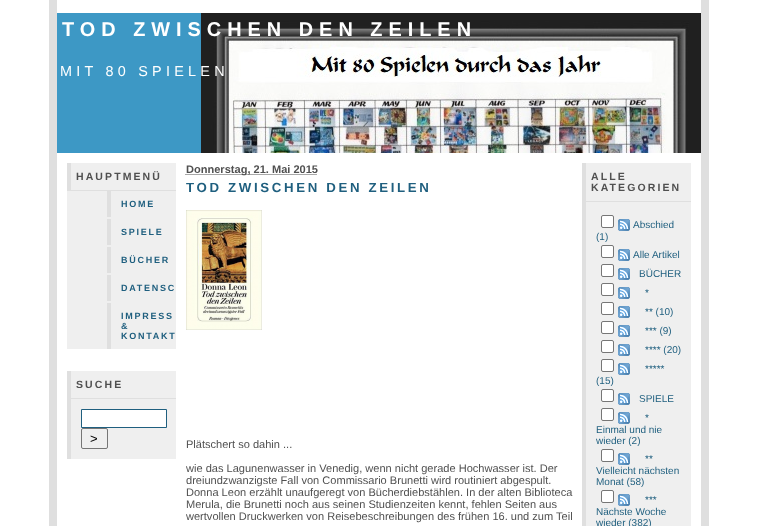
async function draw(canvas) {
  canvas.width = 758
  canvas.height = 526
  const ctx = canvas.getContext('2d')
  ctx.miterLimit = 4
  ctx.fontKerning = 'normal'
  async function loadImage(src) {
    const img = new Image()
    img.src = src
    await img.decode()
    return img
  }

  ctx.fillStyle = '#fff'
  ctx.fillRect(0, 0, 758, 526)
  ctx.fillStyle = '#dfdfdf'
  ctx.fillRect(701, 0, 8, 526)
  ctx.fillRect(49, 0, 8, 526)
  ctx.fillStyle = '#3d98c5'
  ctx.fillRect(57, 13, 144, 140)
  ctx.drawImage(await loadImage('image0.png'), 201, 13, 500, 140)
  ctx.letterSpacing = '6px'
  ctx.font = 'bold 19.9px Liberation Sans'
  ctx.fillStyle = '#fff'
  ctx.fillText('TOD ZWISCHEN DEN ZEILEN', 62, 36)
  ctx.letterSpacing = '4.25px'
  ctx.font = '14.4px Liberation Sans'
  ctx.fillText('MIT 80 SPIELEN', 60, 76)
  ctx.fillStyle = '#efefef'
  ctx.fillRect(71, 163, 105, 27)
  ctx.fillStyle = '#dfdfdf'
  ctx.fillRect(67, 190, 109, 1)
  ctx.fillRect(67, 163, 4, 28)
  ctx.letterSpacing = '2.1px'
  ctx.font = 'bold 10.5px Liberation Sans'
  ctx.fillStyle = '#505050'
  ctx.fillText('HAUPTMENÜ', 76, 180)
  ctx.fillStyle = '#efefef'
  ctx.fillRect(67, 191, 109, 158)
  ctx.fillStyle = '#dfdfdf'
  ctx.fillRect(107, 191, 4, 26)
  ctx.letterSpacing = '1.75px'
  ctx.font = 'bold 9px Liberation Sans'
  ctx.fillStyle = '#1f5f7f'
  ctx.fillText('HOME', 121, 207)
  ctx.fillStyle = '#dfdfdf'
  ctx.fillRect(107, 219, 4, 26)
  ctx.fillStyle = '#1f5f7f'
  ctx.fillText('SPIELE', 121, 235)
  ctx.fillStyle = '#dfdfdf'
  ctx.fillRect(107, 247, 4, 26)
  ctx.fillStyle = '#1f5f7f'
  ctx.fillText('BÜCHER', 121, 263)
  ctx.fillStyle = '#dfdfdf'
  ctx.fillRect(107, 275, 4, 26)
  ctx.fillStyle = '#1f5f7f'
  ctx.fillText('DATENSC', 121, 291)
  ctx.fillStyle = '#dfdfdf'
  ctx.fillRect(107, 303, 4, 46)
  ctx.fillStyle = '#1f5f7f'
  ctx.fillText('IMPRESS', 121, 319)
  ctx.fillText('&', 121, 329)
  ctx.fillText('KONTAKT', 121, 339)
  ctx.fillStyle = '#efefef'
  ctx.fillRect(71, 371, 105, 27)
  ctx.fillStyle = '#dfdfdf'
  ctx.fillRect(67, 398, 109, 1)
  ctx.fillRect(67, 371, 4, 88)
  ctx.letterSpacing = '2.1px'
  ctx.font = 'bold 10.5px Liberation Sans'
  ctx.fillStyle = '#505050'
  ctx.fillText('SUCHE', 76, 388)
  ctx.fillStyle = '#efefef'
  ctx.fillRect(71, 399, 105, 60)
  ctx.fillStyle = '#fff'
  ctx.beginPath()
  ctx.rect(81.5, 409.5, 85, 18)
  ctx.fill()
  ctx.strokeStyle = '#1f5f7f'
  ctx.stroke()
  ctx.beginPath()
  ctx.roundRect(81.5, 428.5, 26, 20, 1.5)
  ctx.strokeStyle = '#767676'
  ctx.stroke()
  ctx.letterSpacing = '0px'
  ctx.font = '13px Liberation Sans'
  ctx.fillStyle = '#000'
  ctx.fillText('>', 90, 443)
  ctx.beginPath()
  ctx.moveTo(185.5, 174.5)
  ctx.lineTo(317.5, 174.5)
  ctx.strokeStyle = '#505050'
  ctx.setLineDash([1, 1])
  ctx.stroke()
  ctx.font = 'bold 11.05px Liberation Sans'
  ctx.fillStyle = '#505050'
  ctx.fillText('Donnerstag, 21. Mai 2015', 186, 173)
  ctx.letterSpacing = '2.65px'
  ctx.font = 'bold 13.25px Liberation Sans'
  ctx.fillStyle = '#1f5f7f'
  ctx.fillText('TOD ZWISCHEN DEN ZEILEN', 186, 192)
  ctx.drawImage(await loadImage('image1.png'), 186, 210, 76, 120)
  ctx.letterSpacing = '0px'
  ctx.font = '11.05px Liberation Sans'
  ctx.fillStyle = '#505050'
  ctx.fillText('Plätschert so dahin ...', 186, 448)
  ctx.fillText('wie das Lagunenwasser in Venedig, wenn nicht gerade Hochwasser ist. Der', 186, 472)
  ctx.fillText('dreiundzwanzigste Fall von Commissario Brunetti wird routiniert abgespult.', 186, 484)
  ctx.fillText('Donna Leon erzählt unaufgeregt von Bücherdiebstählen. In der alten Biblioteca', 186, 496)
  ctx.fillText('Merula, die Brunetti noch aus seinen Studienzeiten kennt, fehlen Seiten aus', 186, 508)
  ctx.fillText('wertvollen Druckwerken von Reisebeschreibungen des frühen 16. und zum Teil', 186, 520)
  ctx.fillStyle = '#efefef'
  ctx.fillRect(586, 163, 105, 38)
  ctx.fillStyle = '#dfdfdf'
  ctx.fillRect(582, 201, 109, 1)
  ctx.fillRect(582, 163, 4, 363)
  ctx.letterSpacing = '2.1px'
  ctx.font = 'bold 10.5px Liberation Sans'
  ctx.fillStyle = '#505050'
  ctx.fillText('ALLE', 591, 180)
  ctx.fillText('KATEGORIEN', 591, 191)
  ctx.fillStyle = '#efefef'
  ctx.fillRect(586, 202, 105, 324)
  ctx.fillStyle = '#fff'
  ctx.beginPath()
  ctx.roundRect(601.5, 215.5, 12, 12, 1.5)
  ctx.fill()
  ctx.strokeStyle = '#767676'
  ctx.setLineDash([])
  ctx.stroke()
  ctx.drawImage(await loadImage('image2.png'), 618, 219, 12, 12)
  ctx.letterSpacing = '0px'
  ctx.font = '10px Liberation Sans'
  ctx.fillStyle = '#1f5f7f'
  ctx.fillText('Abschied', 633, 228)
  ctx.fillText('(1)', 596, 240)
  ctx.fillStyle = '#fff'
  ctx.beginPath()
  ctx.roundRect(601.5, 245.5, 12, 12, 1.5)
  ctx.fill()
  ctx.stroke()
  ctx.drawImage(await loadImage('image2.png'), 618, 249, 12, 12)
  ctx.fillStyle = '#1f5f7f'
  ctx.fillText('Alle Artikel', 633, 258)
  ctx.fillStyle = '#fff'
  ctx.beginPath()
  ctx.roundRect(601.5, 264.5, 12, 12, 1.5)
  ctx.fill()
  ctx.stroke()
  ctx.drawImage(await loadImage('image2.png'), 618, 268, 12, 12)
  ctx.fillStyle = '#1f5f7f'
  ctx.fillText('BÜCHER', 639, 277)
  ctx.fillStyle = '#fff'
  ctx.beginPath()
  ctx.roundRect(601.5, 283.5, 12, 12, 1.5)
  ctx.fill()
  ctx.stroke()
  ctx.drawImage(await loadImage('image2.png'), 618, 287, 12, 12)
  ctx.fillStyle = '#1f5f7f'
  ctx.fillText('*', 645, 296)
  ctx.fillStyle = '#fff'
  ctx.beginPath()
  ctx.roundRect(601.5, 302.5, 12, 12, 1.5)
  ctx.fill()
  ctx.stroke()
  ctx.drawImage(await loadImage('image2.png'), 618, 306, 12, 12)
  ctx.fillStyle = '#1f5f7f'
  ctx.fillText('** (10)', 645, 315)
  ctx.fillStyle = '#fff'
  ctx.beginPath()
  ctx.roundRect(601.5, 321.5, 12, 12, 1.5)
  ctx.fill()
  ctx.stroke()
  ctx.drawImage(await loadImage('image2.png'), 618, 325, 12, 12)
  ctx.fillStyle = '#1f5f7f'
  ctx.fillText('*** (9)', 645, 334)
  ctx.fillStyle = '#fff'
  ctx.beginPath()
  ctx.roundRect(601.5, 340.5, 12, 12, 1.5)
  ctx.fill()
  ctx.stroke()
  ctx.drawImage(await loadImage('image2.png'), 618, 344, 12, 12)
  ctx.fillStyle = '#1f5f7f'
  ctx.fillText('**** (20)', 645, 353)
  ctx.fillStyle = '#fff'
  ctx.beginPath()
  ctx.roundRect(601.5, 359.5, 12, 12, 1.5)
  ctx.fill()
  ctx.stroke()
  ctx.drawImage(await loadImage('image2.png'), 618, 363, 12, 12)
  ctx.fillStyle = '#1f5f7f'
  ctx.fillText('*****', 645, 372)
  ctx.fillText('(15)', 596, 384)
  ctx.fillStyle = '#fff'
  ctx.beginPath()
  ctx.roundRect(601.5, 389.5, 12, 12, 1.5)
  ctx.fill()
  ctx.stroke()
  ctx.drawImage(await loadImage('image2.png'), 618, 393, 12, 12)
  ctx.fillStyle = '#1f5f7f'
  ctx.fillText('SPIELE', 639, 402)
  ctx.fillStyle = '#fff'
  ctx.beginPath()
  ctx.roundRect(601.5, 408.5, 12, 12, 1.5)
  ctx.fill()
  ctx.stroke()
  ctx.drawImage(await loadImage('image2.png'), 618, 412, 12, 12)
  ctx.fillStyle = '#1f5f7f'
  ctx.fillText('*', 645, 421)
  ctx.fillText('Einmal und nie', 596, 433)
  ctx.fillText('wieder (2)', 596, 444)
  ctx.fillStyle = '#fff'
  ctx.beginPath()
  ctx.roundRect(601.5, 449.5, 12, 12, 1.5)
  ctx.fill()
  ctx.stroke()
  ctx.drawImage(await loadImage('image2.png'), 618, 453, 12, 12)
  ctx.fillStyle = '#1f5f7f'
  ctx.fillText('**', 645, 462)
  ctx.fillText('Vielleicht nächsten', 596, 474)
  ctx.fillText('Monat (58)', 596, 485)
  ctx.fillStyle = '#fff'
  ctx.beginPath()
  ctx.roundRect(601.5, 490.5, 12, 12, 1.5)
  ctx.fill()
  ctx.stroke()
  ctx.drawImage(await loadImage('image2.png'), 618, 494, 12, 12)
  ctx.fillStyle = '#1f5f7f'
  ctx.fillText('***', 645, 503)
  ctx.fillText('Nächste Woche', 596, 515)
  ctx.fillText('wieder (382)', 596, 526)
}

draw(document.querySelector('canvas'))
